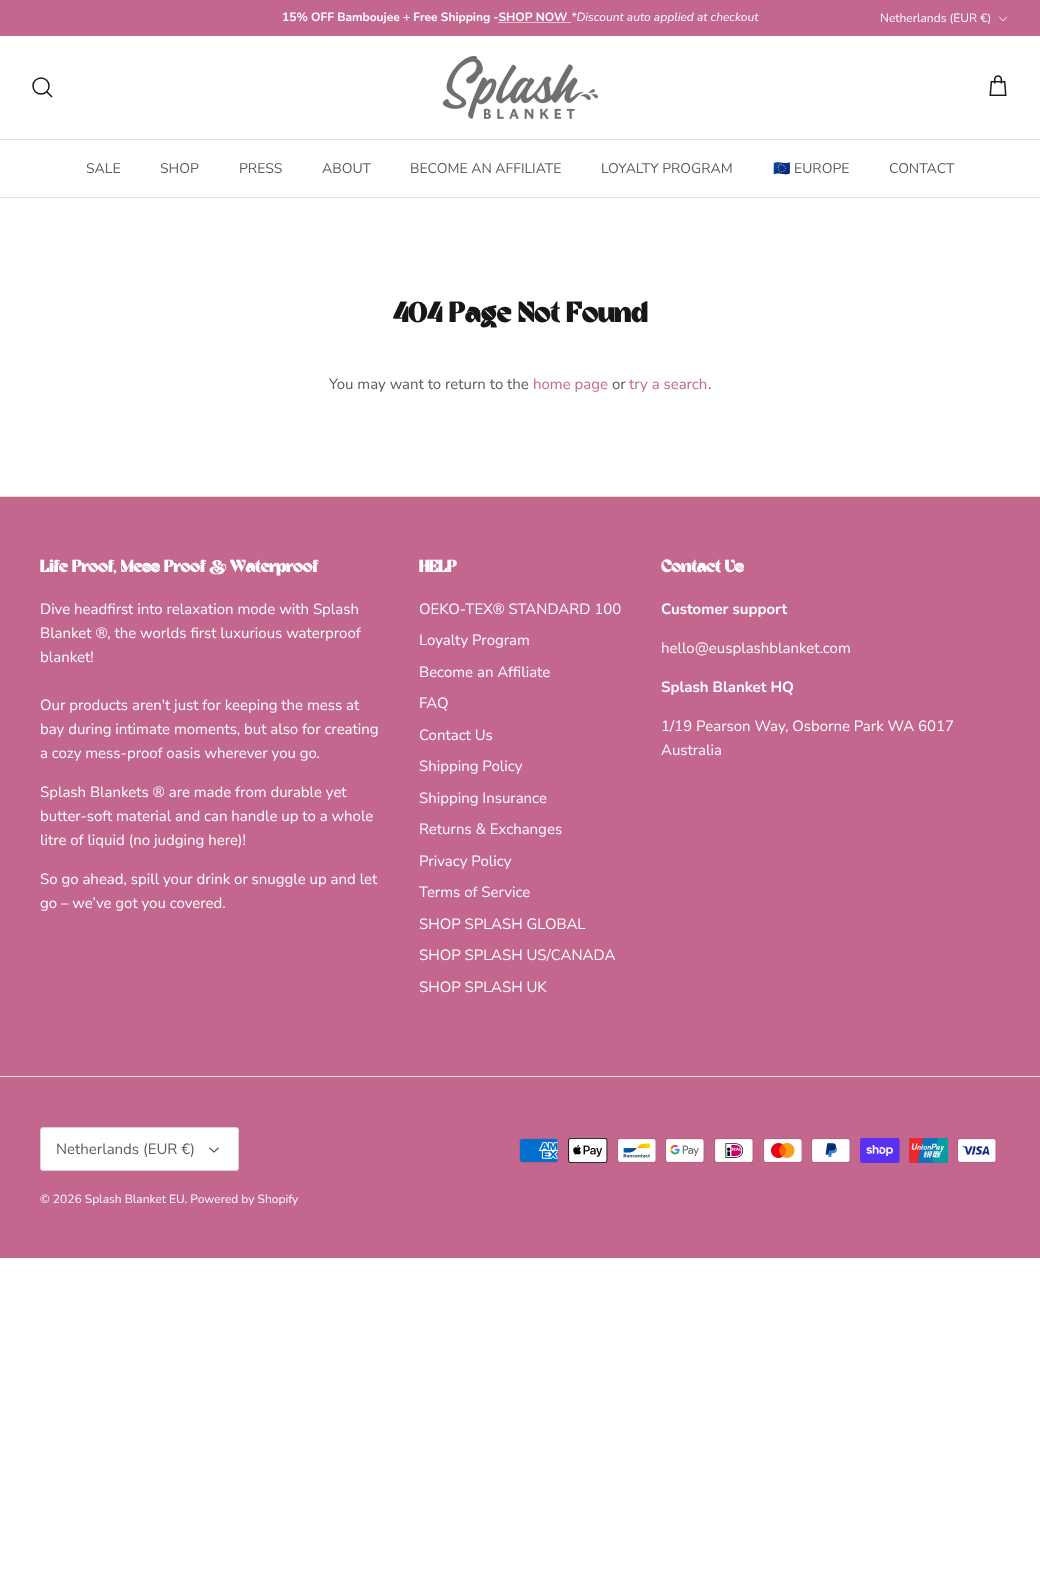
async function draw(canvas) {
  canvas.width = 1040
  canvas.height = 1569
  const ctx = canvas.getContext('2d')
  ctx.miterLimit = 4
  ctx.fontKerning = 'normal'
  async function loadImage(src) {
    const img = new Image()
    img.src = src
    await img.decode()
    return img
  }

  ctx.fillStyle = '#fff'
  ctx.fillRect(0, 0, 1040, 1569)
  ctx.fillStyle = '#c3678f'
  ctx.fillRect(0, 0, 1040, 36)
  ctx.font = 'bold 12px Nunito Sans'
  ctx.fillStyle = '#fff'
  ctx.fillText('15% OFF Bamboujee + Free Shipping -SHOP NOW', 282, 21)
  ctx.font = 'italic 12px Nunito Sans'
  ctx.fillText('*Discount auto applied at checkout', 571, 21)
  ctx.fillStyle = '#e7c2d2'
  ctx.fillRect(498, 22, 73, 1)
  ctx.font = '12px Nunito Sans'
  ctx.fillStyle = '#fff'
  ctx.fillText('Netherlands (EUR €)', 880, 22)
  ctx.beginPath()
  ctx.moveTo(999.5, 17)
  ctx.lineTo(1003, 21)
  ctx.lineTo(1006.5, 17)
  ctx.strokeStyle = '#fff'
  ctx.lineWidth = 0.9
  ctx.lineCap = 'round'
  ctx.lineJoin = 'round'
  ctx.stroke()
  ctx.fillStyle = '#dfe3e8'
  ctx.fillRect(0, 139, 1040, 1)
  ctx.beginPath()
  ctx.arc(41, 86, 8, 0, 2 * Math.PI)
  ctx.strokeStyle = '#171717'
  ctx.lineWidth = 1.5
  ctx.stroke()
  ctx.beginPath()
  ctx.moveTo(47, 92)
  ctx.lineTo(51.5, 96.5)
  ctx.lineCap = 'square'
  ctx.lineJoin = 'miter'
  ctx.stroke()
  ctx.drawImage(await loadImage('image0.png'), 443, 56, 155, 63)
  ctx.drawImage(await loadImage('image1.png'), 989, 75, 18, 21)
  ctx.fillRect(0, 197, 1040, 1)
  ctx.font = '14px Nunito Sans'
  ctx.fillStyle = '#5c5c5c'
  ctx.fillText('SALE', 86, 173)
  ctx.fillText('SHOP', 160, 173)
  ctx.fillText('PRESS', 239, 173)
  ctx.fillText('ABOUT', 322, 173)
  ctx.fillText('BECOME AN AFFILIATE', 410, 173)
  ctx.fillText('LOYALTY PROGRAM', 601, 173)
  ctx.font = '14px Noto Color Emoji'
  ctx.fillText('🇪🇺', 773, 173)
  ctx.font = '14px Nunito Sans'
  ctx.fillText('EUROPE', 794, 173)
  ctx.fillText('CONTACT', 889, 173)
  ctx.font = 'bold 28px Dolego'
  ctx.fillStyle = '#171717'
  ctx.fillText('404 Page Not Found', 393, 322)
  ctx.font = '15px Nunito Sans'
  ctx.fillStyle = '#5c5c5c'
  ctx.fillText('You may want to return to the', 329, 389)
  ctx.fillStyle = '#c3678f'
  ctx.fillText('home page', 533, 389)
  ctx.fillStyle = '#5c5c5c'
  ctx.fillText('or', 612, 389)
  ctx.fillStyle = '#c3678f'
  ctx.fillText('try a search', 629, 389)
  ctx.fillStyle = '#5c5c5c'
  ctx.fillText('.', 708, 389)
  ctx.fillStyle = '#c3678f'
  ctx.fillRect(0, 497, 1040, 761)
  ctx.fillStyle = '#efdfc7'
  ctx.fillRect(0, 496, 1040, 1)
  ctx.font = 'bold 17px Dolego'
  ctx.fillStyle = '#fff'
  ctx.fillText('Life Proof, Mess Proof & Waterproof', 40, 572)
  ctx.font = '15px Nunito Sans'
  ctx.fillText('Dive headfirst into relaxation mode with Splash', 40, 614)
  ctx.fillText('Blanket ®, the worlds first luxurious waterproof', 40, 638)
  ctx.fillText('blanket!', 40, 662)
  ctx.fillText('Our products aren\'t just for keeping the mess at', 40, 710)
  ctx.fillText('bay during intimate moments, but also for creating', 40, 734)
  ctx.fillText('a cozy mess-proof oasis wherever you go.', 40, 758)
  ctx.fillText('Splash Blankets ® are made from durable yet', 40, 797)
  ctx.fillText('butter-soft material and can handle up to a whole', 40, 821)
  ctx.fillText('litre of liquid (no judging here)!', 40, 845)
  ctx.fillText('So go ahead, spill your drink or snuggle up and let', 40, 884)
  ctx.fillText('go – we’ve got you covered.', 40, 908)
  ctx.font = 'bold 17px Dolego'
  ctx.fillText('HELP', 419, 572)
  ctx.font = '15px Nunito Sans'
  ctx.fillText('OEKO-TEX® STANDARD 100', 419, 614)
  ctx.fillText('Loyalty Program', 419, 645)
  ctx.fillText('Become an Affiliate', 419, 677)
  ctx.fillText('FAQ', 419, 708)
  ctx.fillText('Contact Us', 419, 740)
  ctx.fillText('Shipping Policy', 419, 771)
  ctx.fillText('Shipping Insurance', 419, 803)
  ctx.fillText('Returns & Exchanges', 419, 834)
  ctx.fillText('Privacy Policy', 419, 866)
  ctx.fillText('Terms of Service', 419, 897)
  ctx.fillText('SHOP SPLASH GLOBAL', 419, 929)
  ctx.fillText('SHOP SPLASH US/CANADA', 419, 960)
  ctx.fillText('SHOP SPLASH UK', 419, 992)
  ctx.font = 'bold 17px Dolego'
  ctx.fillText('Contact Us', 661, 572)
  ctx.font = 'bold 15px Nunito Sans'
  ctx.fillText('Customer support', 661, 614)
  ctx.font = '15px Nunito Sans'
  ctx.fillText('hello@eusplashblanket.com', 661, 653)
  ctx.font = 'bold 15px Nunito Sans'
  ctx.fillText('Splash Blanket HQ', 661, 692)
  ctx.font = '15px Nunito Sans'
  ctx.fillText('1/19 Pearson Way, Osborne Park WA 6017', 661, 731)
  ctx.fillText('Australia', 661, 755)
  ctx.fillStyle = '#efdfc7'
  ctx.fillRect(0, 1076, 1040, 1)
  ctx.fillStyle = '#fff'
  ctx.beginPath()
  ctx.roundRect(40.5, 1127.5, 198, 43, 2.5)
  ctx.fill()
  ctx.strokeStyle = '#d6d6d6'
  ctx.lineWidth = 1
  ctx.stroke()
  ctx.fillStyle = '#5c5c5c'
  ctx.fillText('Netherlands (EUR €)', 56, 1154)
  ctx.beginPath()
  ctx.moveTo(209.5, 1148)
  ctx.lineTo(214, 1152)
  ctx.lineTo(218.5, 1148)
  ctx.strokeStyle = '#5c5c5c'
  ctx.lineWidth = 1.1
  ctx.lineCap = 'round'
  ctx.lineJoin = 'round'
  ctx.stroke()
  ctx.font = '12px Nunito Sans'
  ctx.fillStyle = '#fff'
  ctx.fillText('© 2026 Splash Blanket EU. Powered by Shopify', 40, 1203)
  ctx.drawImage(await loadImage('image2.png'), 519, 1138, 40, 25)
  ctx.drawImage(await loadImage('image3.png'), 568, 1138, 40, 25)
  ctx.drawImage(await loadImage('image4.png'), 617, 1138, 39, 25)
  ctx.drawImage(await loadImage('image5.png'), 665, 1138, 40, 25)
  ctx.drawImage(await loadImage('image6.png'), 714, 1138, 40, 25)
  ctx.drawImage(await loadImage('image7.png'), 763, 1138, 39, 25)
  ctx.drawImage(await loadImage('image8.png'), 811, 1138, 40, 25)
  ctx.drawImage(await loadImage('image9.png'), 860, 1138, 40, 25)
  ctx.drawImage(await loadImage('image10.png'), 909, 1138, 39, 25)
  ctx.drawImage(await loadImage('image11.png'), 957, 1138, 40, 25)
}

draw(document.querySelector('canvas'))
